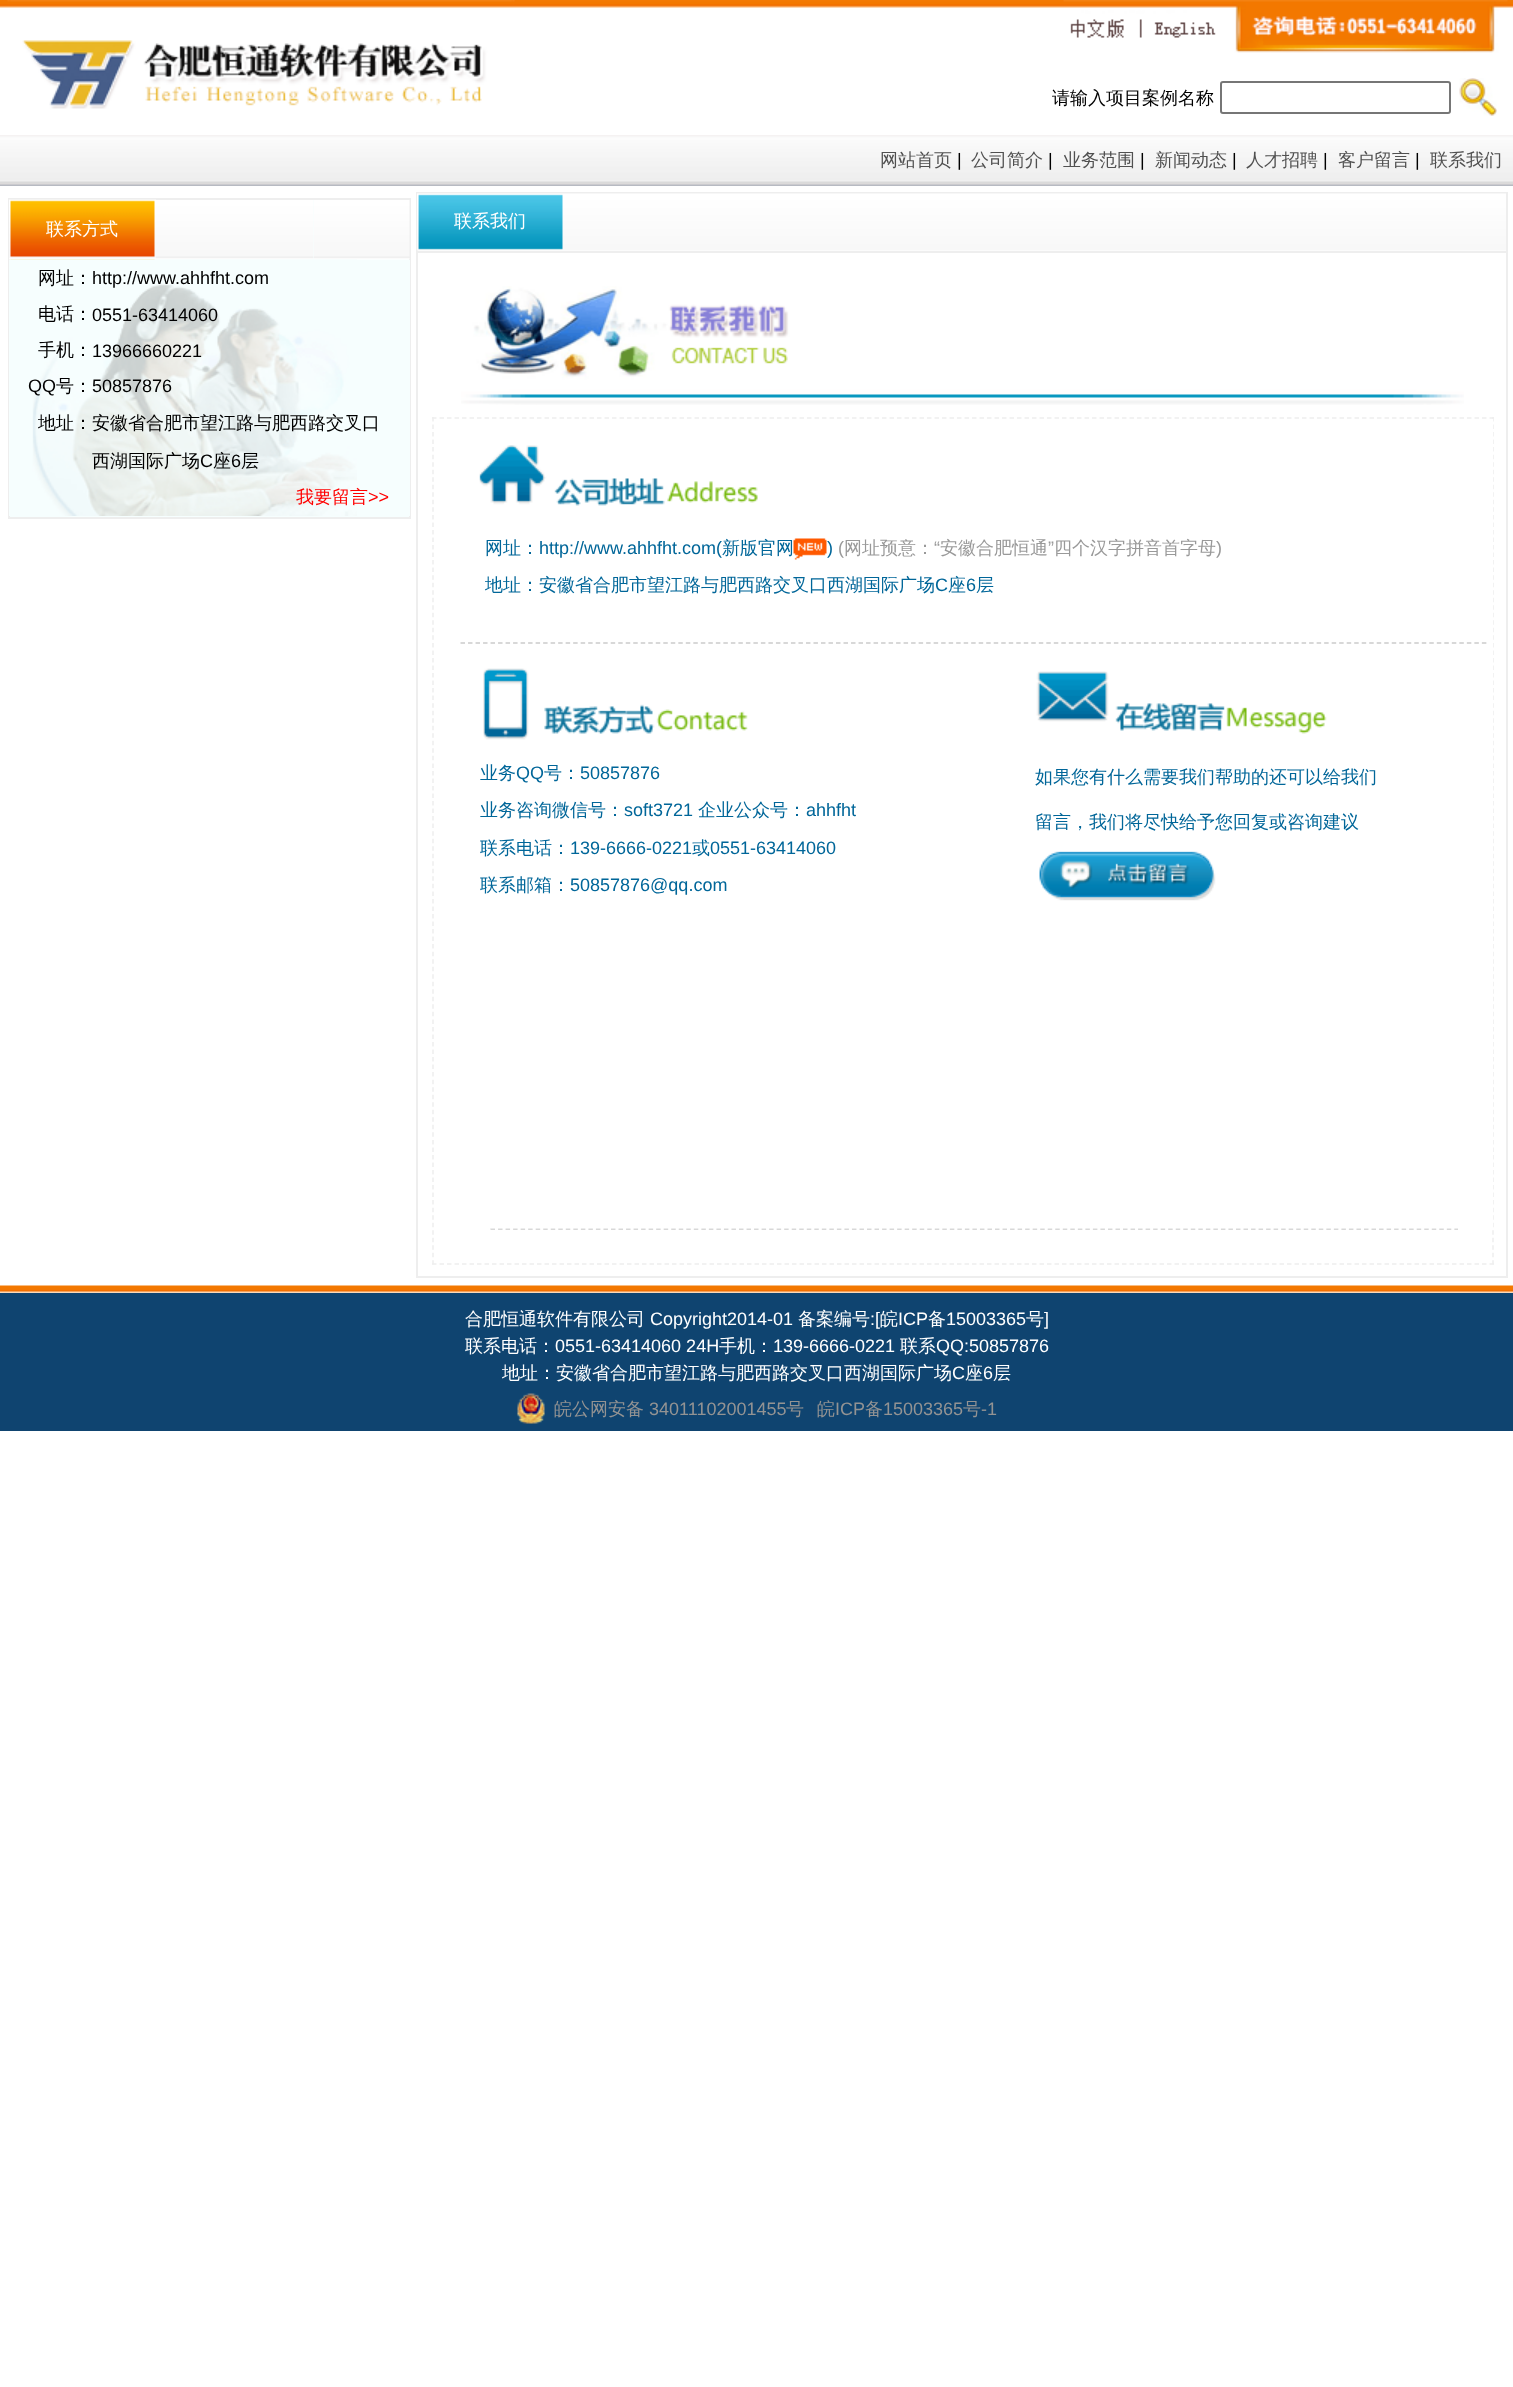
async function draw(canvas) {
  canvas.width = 1513
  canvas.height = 2387
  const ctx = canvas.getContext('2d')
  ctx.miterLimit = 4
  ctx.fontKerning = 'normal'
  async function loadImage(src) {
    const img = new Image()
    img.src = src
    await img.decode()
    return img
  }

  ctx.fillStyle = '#fff'
  ctx.fillRect(0, 0, 1513, 2387)
  ctx.drawImage(await loadImage('image0.png'), 0, 0, 1513, 8)
  ctx.drawImage(await loadImage('image1.png'), 7, 0, 508, 109)
  ctx.drawImage(await loadImage('image2.png'), 1063, 0, 445, 53)
  ctx.font = '500 18px WenQuanYi Zen Hei'
  ctx.fillStyle = '#000'
  ctx.fillText('请输入项目案例名称', 1052, 104)
  ctx.beginPath()
  ctx.roundRect(1221, 82, 229, 31, 2)
  ctx.strokeStyle = '#767676'
  ctx.lineWidth = 2
  ctx.stroke()
  ctx.drawImage(await loadImage('image3.png'), 1459, 78, 38, 38)
  ctx.drawImage(await loadImage('image4.png'), 0, 135, 1513, 51)
  ctx.fillStyle = '#505050'
  ctx.fillText('网站首页', 880, 166)
  ctx.font = '18px Liberation Sans'
  ctx.fillStyle = '#000'
  ctx.fillText('|', 957, 166)
  ctx.font = '500 18px WenQuanYi Zen Hei'
  ctx.fillStyle = '#505050'
  ctx.fillText('公司简介', 971, 166)
  ctx.font = '18px Liberation Sans'
  ctx.fillStyle = '#000'
  ctx.fillText('|', 1048, 166)
  ctx.font = '500 18px WenQuanYi Zen Hei'
  ctx.fillStyle = '#505050'
  ctx.fillText('业务范围', 1063, 166)
  ctx.font = '18px Liberation Sans'
  ctx.fillStyle = '#000'
  ctx.fillText('|', 1140, 166)
  ctx.font = '500 18px WenQuanYi Zen Hei'
  ctx.fillStyle = '#505050'
  ctx.fillText('新闻动态', 1155, 166)
  ctx.font = '18px Liberation Sans'
  ctx.fillStyle = '#000'
  ctx.fillText('|', 1232, 166)
  ctx.font = '500 18px WenQuanYi Zen Hei'
  ctx.fillStyle = '#505050'
  ctx.fillText('人才招聘', 1246, 166)
  ctx.font = '18px Liberation Sans'
  ctx.fillStyle = '#000'
  ctx.fillText('|', 1323, 166)
  ctx.font = '500 18px WenQuanYi Zen Hei'
  ctx.fillStyle = '#505050'
  ctx.fillText('客户留言', 1338, 166)
  ctx.font = '18px Liberation Sans'
  ctx.fillStyle = '#000'
  ctx.fillText('|', 1415, 166)
  ctx.font = '500 18px WenQuanYi Zen Hei'
  ctx.fillStyle = '#505050'
  ctx.fillText('联系我们', 1430, 166)
  ctx.fillStyle = '#f6fefe'
  ctx.beginPath()
  ctx.rect(9, 199, 401, 319)
  ctx.fill()
  ctx.strokeStyle = '#eee'
  ctx.stroke()
  ctx.drawImage(await loadImage('image5.png'), 9, 199, 147, 61)
  ctx.fillStyle = '#fff'
  ctx.fillText('联系方式', 46, 235)
  ctx.drawImage(await loadImage('image6.png'), 156, 200, 158, 60)
  ctx.drawImage(await loadImage('image7.png'), 314, 200, 96, 60)
  ctx.fillStyle = '#f6fefe'
  ctx.fillRect(9, 260, 401, 256)
  ctx.drawImage(await loadImage('image8.png'), 10, 259, 347, 257)
  ctx.fillStyle = '#000'
  ctx.fillText('网址：', 38, 284)
  ctx.font = '18px Liberation Sans'
  ctx.fillText('http://www.ahhfht.com', 92, 284)
  ctx.font = '500 18px WenQuanYi Zen Hei'
  ctx.fillText('电话：', 38, 320)
  ctx.font = '18px Liberation Sans'
  ctx.fillText('0551-63414060', 92, 321)
  ctx.font = '500 18px WenQuanYi Zen Hei'
  ctx.fillText('手机：', 38, 356)
  ctx.font = '18px Liberation Sans'
  ctx.fillText('13966660221', 92, 357)
  ctx.fillText('QQ', 28, 392)
  ctx.font = '500 18px WenQuanYi Zen Hei'
  ctx.fillText('号：', 56, 392)
  ctx.font = '18px Liberation Sans'
  ctx.fillText('50857876', 92, 392)
  ctx.font = '500 18px WenQuanYi Zen Hei'
  ctx.fillText('地址：安徽省合肥市望江路与肥西路交叉口', 38, 429)
  ctx.fillText('西湖国际广场', 92, 467)
  ctx.font = '18px Liberation Sans'
  ctx.fillText('C', 200, 467)
  ctx.font = '500 18px WenQuanYi Zen Hei'
  ctx.fillText('座', 213, 467)
  ctx.font = '18px Liberation Sans'
  ctx.fillText('6', 231, 467)
  ctx.font = '500 18px WenQuanYi Zen Hei'
  ctx.fillText('层', 241, 467)
  ctx.fillStyle = '#f00'
  ctx.fillText('我要留言', 296, 503)
  ctx.font = '18px Liberation Sans'
  ctx.fillText('>>', 368, 503)
  ctx.strokeRect(417, 193, 1090, 1084)
  ctx.fillStyle = '#eee'
  ctx.fillRect(417, 251, 1089, 2)
  ctx.drawImage(await loadImage('image9.png'), 417, 193, 147, 58)
  ctx.font = '500 18px WenQuanYi Zen Hei'
  ctx.fillStyle = '#fff'
  ctx.fillText('联系我们', 454, 227)
  ctx.drawImage(await loadImage('image10.png'), 564, 193, 840, 58)
  ctx.drawImage(await loadImage('image11.png'), 1404, 193, 102, 58)
  ctx.drawImage(await loadImage('image12.png'), 461, 286, 1003, 119)
  ctx.beginPath()
  ctx.moveTo(432, 418)
  ctx.lineTo(1494, 418)
  ctx.lineWidth = 1.5
  ctx.setLineDash([4.5, 3])
  ctx.stroke()
  ctx.beginPath()
  ctx.moveTo(1493, 417)
  ctx.lineTo(1493, 1264.5)
  ctx.setLineDash([4.5, 3.03])
  ctx.stroke()
  ctx.beginPath()
  ctx.moveTo(432, 1264)
  ctx.lineTo(1494, 1264)
  ctx.setLineDash([4.5, 3])
  ctx.stroke()
  ctx.beginPath()
  ctx.moveTo(433, 417)
  ctx.lineTo(433, 1264.5)
  ctx.setLineDash([4.5, 3.03])
  ctx.stroke()
  ctx.fillRect(1492, 419, 1, 809)
  ctx.beginPath()
  ctx.moveTo(460.5, 643)
  ctx.lineTo(1486.5, 643)
  ctx.strokeStyle = '#ccc'
  ctx.setLineDash([4.5, 3.01])
  ctx.stroke()
  ctx.drawImage(await loadImage('image13.png'), 479, 445, 279, 61)
  ctx.fillStyle = '#069'
  ctx.fillText('网址：', 485, 554)
  ctx.font = '18px Liberation Sans'
  ctx.fillText('http://www.ahhfht.com(', 539, 554)
  ctx.font = '500 18px WenQuanYi Zen Hei'
  ctx.fillText('新版官网', 722, 554)
  ctx.drawImage(await loadImage('image14.png'), 793, 538, 34, 22)
  ctx.font = '18px Liberation Sans'
  ctx.fillText(')', 827, 554)
  ctx.fillStyle = '#999'
  ctx.fillText('(', 838, 554)
  ctx.font = '500 18px WenQuanYi Zen Hei'
  ctx.fillText('网址预意：', 844, 554)
  ctx.font = '18px Liberation Sans'
  ctx.fillText('“', 934, 554)
  ctx.font = '500 18px WenQuanYi Zen Hei'
  ctx.fillText('安徽合肥恒通', 940, 554)
  ctx.font = '18px Liberation Sans'
  ctx.fillText('”', 1048, 554)
  ctx.font = '500 18px WenQuanYi Zen Hei'
  ctx.fillText('四个汉字拼音首字母', 1054, 554)
  ctx.font = '18px Liberation Sans'
  ctx.fillText(')', 1216, 554)
  ctx.font = '500 18px WenQuanYi Zen Hei'
  ctx.fillStyle = '#069'
  ctx.fillText('地址：安徽省合肥市望江路与肥西路交叉口西湖国际广场', 485, 591)
  ctx.font = '18px Liberation Sans'
  ctx.fillText('C', 935, 591)
  ctx.font = '500 18px WenQuanYi Zen Hei'
  ctx.fillText('座', 948, 591)
  ctx.font = '18px Liberation Sans'
  ctx.fillText('6', 966, 591)
  ctx.font = '500 18px WenQuanYi Zen Hei'
  ctx.fillText('层', 976, 591)
  ctx.drawImage(await loadImage('image15.png'), 483, 668, 265, 72)
  ctx.fillText('业务', 480, 779)
  ctx.font = '18px Liberation Sans'
  ctx.fillText('QQ', 516, 779)
  ctx.font = '500 18px WenQuanYi Zen Hei'
  ctx.fillText('号：', 544, 779)
  ctx.font = '18px Liberation Sans'
  ctx.fillText('50857876', 580, 779)
  ctx.font = '500 18px WenQuanYi Zen Hei'
  ctx.fillText('业务咨询微信号：', 480, 816)
  ctx.font = '18px Liberation Sans'
  ctx.fillText('soft3721', 624, 816)
  ctx.font = '500 18px WenQuanYi Zen Hei'
  ctx.fillText('企业公众号：', 698, 816)
  ctx.font = '18px Liberation Sans'
  ctx.fillText('ahhfht', 806, 816)
  ctx.font = '500 18px WenQuanYi Zen Hei'
  ctx.fillText('联系电话：', 480, 854)
  ctx.font = '18px Liberation Sans'
  ctx.fillText('139-6666-0221', 570, 854)
  ctx.font = '500 18px WenQuanYi Zen Hei'
  ctx.fillText('或', 692, 854)
  ctx.font = '18px Liberation Sans'
  ctx.fillText('0551-63414060', 710, 854)
  ctx.font = '500 18px WenQuanYi Zen Hei'
  ctx.fillText('联系邮箱：', 480, 891)
  ctx.font = '18px Liberation Sans'
  ctx.fillText('50857876@qq.com', 570, 891)
  ctx.drawImage(await loadImage('image16.png'), 1036, 671, 291, 63)
  ctx.font = '500 18px WenQuanYi Zen Hei'
  ctx.fillText('如果您有什么需要我们帮助的还可以给我们', 1035, 783)
  ctx.fillText('留言，我们将尽快给予您回复或咨询建议', 1035, 828)
  ctx.drawImage(await loadImage('image17.png'), 1039, 851, 177, 50)
  ctx.beginPath()
  ctx.moveTo(490.5, 1229)
  ctx.lineTo(1458, 1229)
  ctx.setLineDash([4.5, 3.03])
  ctx.stroke()
  ctx.drawImage(await loadImage('image18.png'), 490, 1228, 968, 1)
  ctx.drawImage(await loadImage('image19.png'), 0, 1285, 1513, 8)
  ctx.fillStyle = '#0f4470'
  ctx.fillRect(0, 1293, 1513, 138)
  ctx.fillStyle = '#fff'
  ctx.fillText('合肥恒通软件有限公司', 465, 1325)
  ctx.font = '18px Liberation Sans'
  ctx.fillText('Copyright2014-01', 650, 1325)
  ctx.font = '500 18px WenQuanYi Zen Hei'
  ctx.fillText('备案编号', 798, 1325)
  ctx.font = '18px Liberation Sans'
  ctx.fillText(':[', 870, 1325)
  ctx.font = '500 18px WenQuanYi Zen Hei'
  ctx.fillText('皖', 880, 1325)
  ctx.font = '18px Liberation Sans'
  ctx.fillText('ICP', 898, 1325)
  ctx.font = '500 18px WenQuanYi Zen Hei'
  ctx.fillText('备', 928, 1325)
  ctx.font = '18px Liberation Sans'
  ctx.fillText('15003365', 946, 1325)
  ctx.font = '500 18px WenQuanYi Zen Hei'
  ctx.fillText('号', 1026, 1325)
  ctx.font = '18px Liberation Sans'
  ctx.fillText(']', 1044, 1325)
  ctx.font = '500 18px WenQuanYi Zen Hei'
  ctx.fillText('联系电话：', 465, 1352)
  ctx.font = '18px Liberation Sans'
  ctx.fillText('0551-63414060 24H', 555, 1352)
  ctx.font = '500 18px WenQuanYi Zen Hei'
  ctx.fillText('手机：', 719, 1352)
  ctx.font = '18px Liberation Sans'
  ctx.fillText('139-6666-0221', 773, 1352)
  ctx.font = '500 18px WenQuanYi Zen Hei'
  ctx.fillText('联系', 900, 1352)
  ctx.font = '18px Liberation Sans'
  ctx.fillText('QQ:50857876', 936, 1352)
  ctx.font = '500 18px WenQuanYi Zen Hei'
  ctx.fillText('地址：安徽省合肥市望江路与肥西路交叉口西湖国际广场', 502, 1379)
  ctx.font = '18px Liberation Sans'
  ctx.fillText('C', 952, 1379)
  ctx.font = '500 18px WenQuanYi Zen Hei'
  ctx.fillText('座', 965, 1379)
  ctx.font = '18px Liberation Sans'
  ctx.fillText('6', 983, 1379)
  ctx.font = '500 18px WenQuanYi Zen Hei'
  ctx.fillText('层', 993, 1379)
  ctx.drawImage(await loadImage('image20.png'), 517, 1393, 28, 31)
  ctx.fillStyle = '#939393'
  ctx.fillText('皖公网安备', 554, 1415)
  ctx.font = '18px Liberation Sans'
  ctx.fillText('34011102001455', 649, 1415)
  ctx.font = '500 18px WenQuanYi Zen Hei'
  ctx.fillText('号', 786, 1415)
  ctx.fillText('皖', 817, 1415)
  ctx.font = '18px Liberation Sans'
  ctx.fillText('ICP', 835, 1415)
  ctx.font = '500 18px WenQuanYi Zen Hei'
  ctx.fillText('备', 865, 1415)
  ctx.font = '18px Liberation Sans'
  ctx.fillText('15003365', 883, 1415)
  ctx.font = '500 18px WenQuanYi Zen Hei'
  ctx.fillText('号', 963, 1415)
  ctx.font = '18px Liberation Sans'
  ctx.fillText('-1', 981, 1415)
}

draw(document.querySelector('canvas'))
